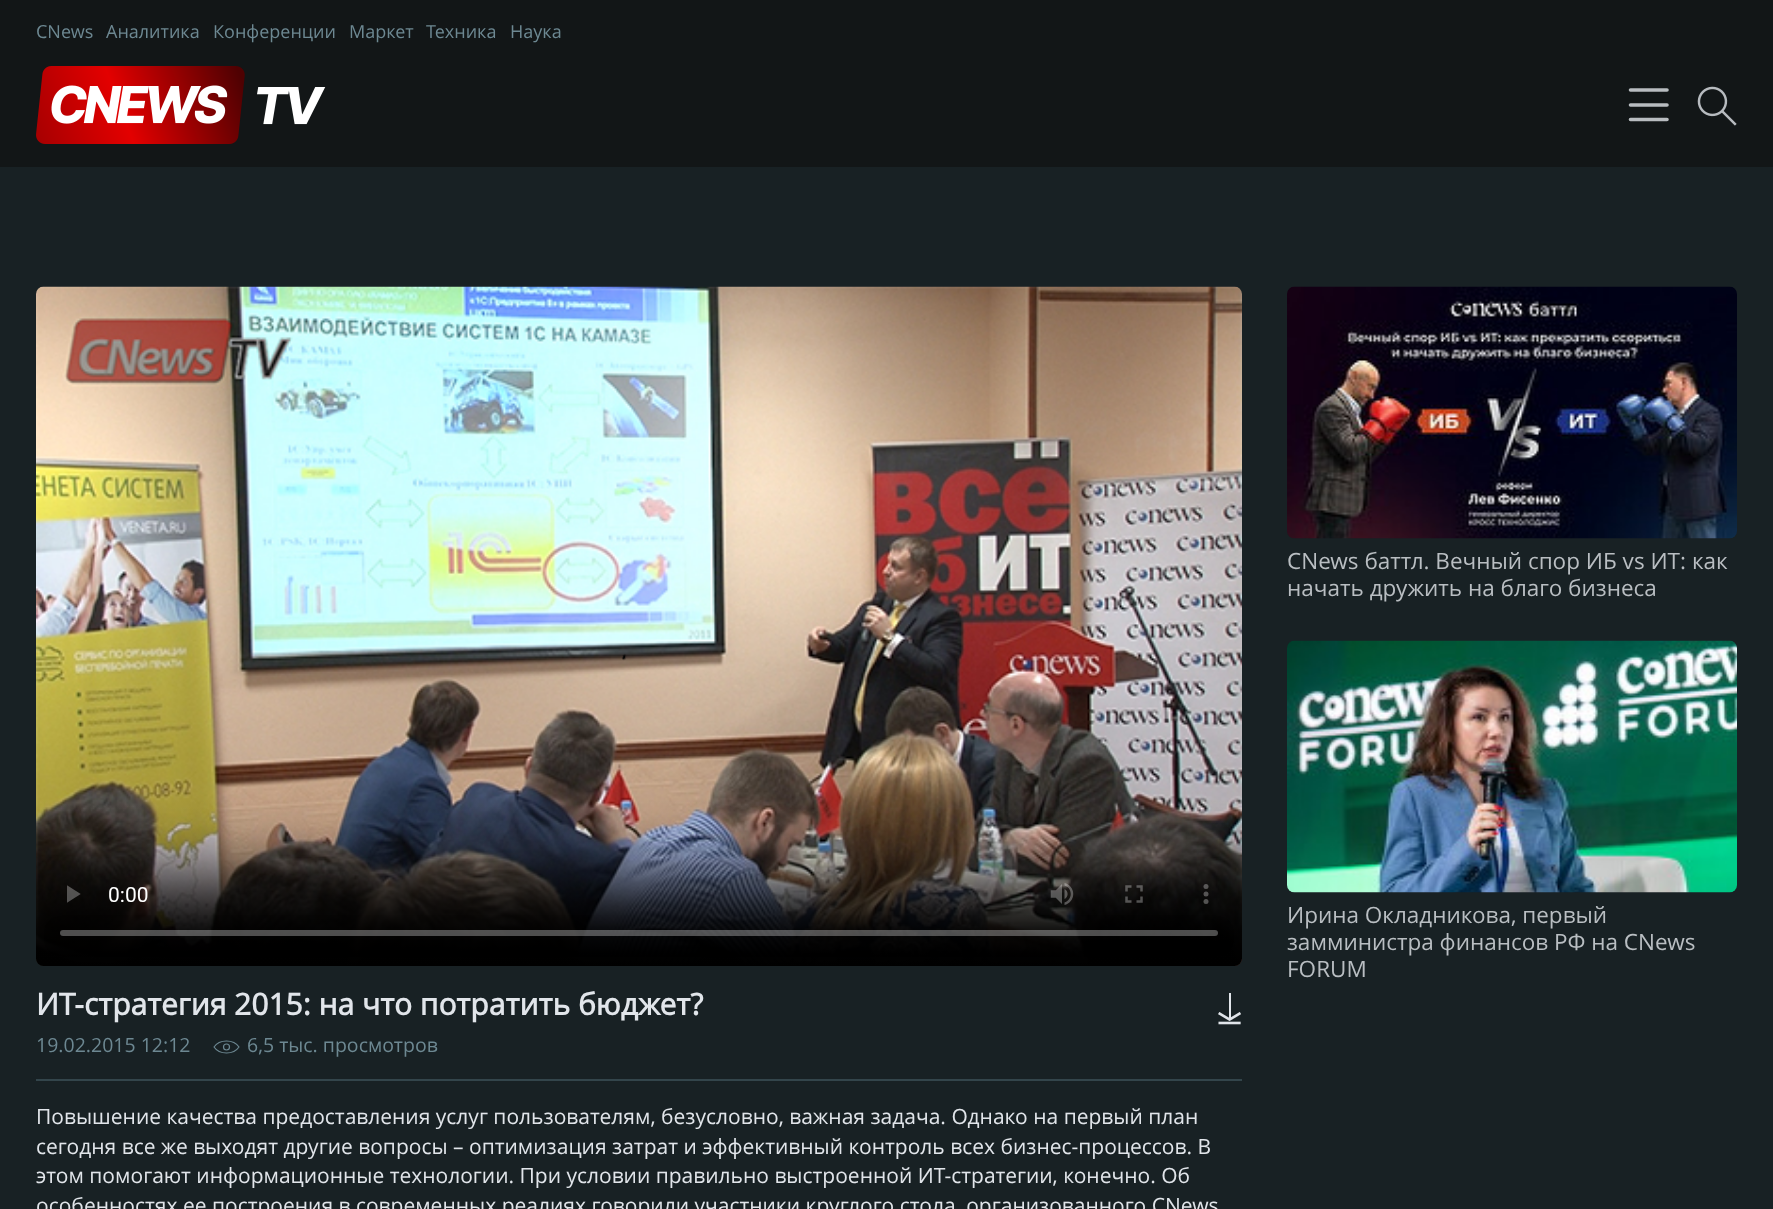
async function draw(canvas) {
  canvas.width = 1773
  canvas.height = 1209
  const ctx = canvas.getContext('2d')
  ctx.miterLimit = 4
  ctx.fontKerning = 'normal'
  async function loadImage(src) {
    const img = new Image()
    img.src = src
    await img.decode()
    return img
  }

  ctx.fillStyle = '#182124'
  ctx.fillRect(0, 0, 1773, 1209)
  ctx.fillStyle = '#121617'
  ctx.fillRect(0, 0, 1773, 167)
  ctx.font = '18px Open Sans'
  ctx.fillStyle = '#6d8892'
  ctx.fillText('CNews', 36, 38)
  ctx.fillText('Аналитика', 106, 38)
  ctx.fillText('Конференции', 213, 38)
  ctx.fillText('Маркет', 349, 38)
  ctx.fillText('Техника', 426, 38)
  ctx.fillText('Наука', 510, 38)
  ctx.drawImage(await loadImage('image0.png'), 36, 66, 290, 78)
  ctx.beginPath()
  ctx.moveTo(1630.5, 90)
  ctx.lineTo(1667, 90)
  ctx.moveTo(1630.5, 105)
  ctx.lineTo(1667, 105)
  ctx.moveTo(1630.5, 119.5)
  ctx.lineTo(1667, 119.5)
  ctx.strokeStyle = '#b8bcc0'
  ctx.lineWidth = 3.6
  ctx.lineCap = 'round'
  ctx.stroke()
  ctx.drawImage(await loadImage('image1.png'), 1697, 86, 40, 40)
  ctx.drawImage(await loadImage('image2.png'), 1287, 286, 450, 253)
  ctx.font = '22.5px Open Sans'
  ctx.fillStyle = '#b9bec2'
  ctx.fillText('CNews баттл. Вечный спор ИБ vs ИТ: как', 1287, 569)
  ctx.fillText('начать дружить на благо бизнеса', 1287, 596)
  ctx.drawImage(await loadImage('image3.png'), 1287, 640, 450, 253)
  ctx.fillText('Ирина Окладникова, первый', 1287, 923)
  ctx.fillText('замминистра финансов РФ на CNews', 1287, 950)
  ctx.fillText('FORUM', 1287, 977)
  ctx.drawImage(await loadImage('image4.png'), 36, 286, 1206, 680)
  ctx.font = 'bold 30px Open Sans'
  ctx.fillStyle = '#e1e5ea'
  ctx.fillText('ИТ-стратегия 2015: на что потратить бюджет?', 36, 1015)
  ctx.drawImage(await loadImage('image5.png'), 1218, 993, 23, 32)
  ctx.font = '19.5px Open Sans'
  ctx.fillStyle = '#6d8892'
  ctx.fillText('19.02.2015 12:12', 36, 1052)
  ctx.beginPath()
  ctx.arc(226.5, 1047, 3, 0, 2 * Math.PI)
  ctx.strokeStyle = '#6d8892'
  ctx.lineWidth = 1.2
  ctx.stroke()
  ctx.beginPath()
  ctx.moveTo(239, 1047)
  ctx.bezierCurveTo(233.5, 1055, 219.5, 1055, 214, 1047)
  ctx.bezierCurveTo(219.5, 1039, 233.5, 1039, 239, 1047)
  ctx.closePath()
  ctx.lineJoin = 'round'
  ctx.stroke()
  ctx.fillText('6,5 тыс. просмотров', 247, 1052)
  ctx.fillStyle = '#33454b'
  ctx.fillRect(36, 1079, 1206, 2)
  ctx.font = '21px Open Sans'
  ctx.fillStyle = '#e1e5ea'
  ctx.fillText('Повышение качества предоставления услуг пользователям, безусловно, важная задача. Однако на первый план', 36, 1124)
  ctx.fillText('сегодня все же выходят другие вопросы – оптимизация затрат и эффективный контроль всех бизнес-процессов. В', 36, 1154)
  ctx.fillText('этом помогают информационные технологии. При условии правильно выстроенной ИТ-стратегии, конечно. Об', 36, 1183)
  ctx.fillText('особенностях ее построения в современных реалиях говорили участники круглого стола, организованного CNews', 36, 1213)
}

draw(document.querySelector('canvas'))
